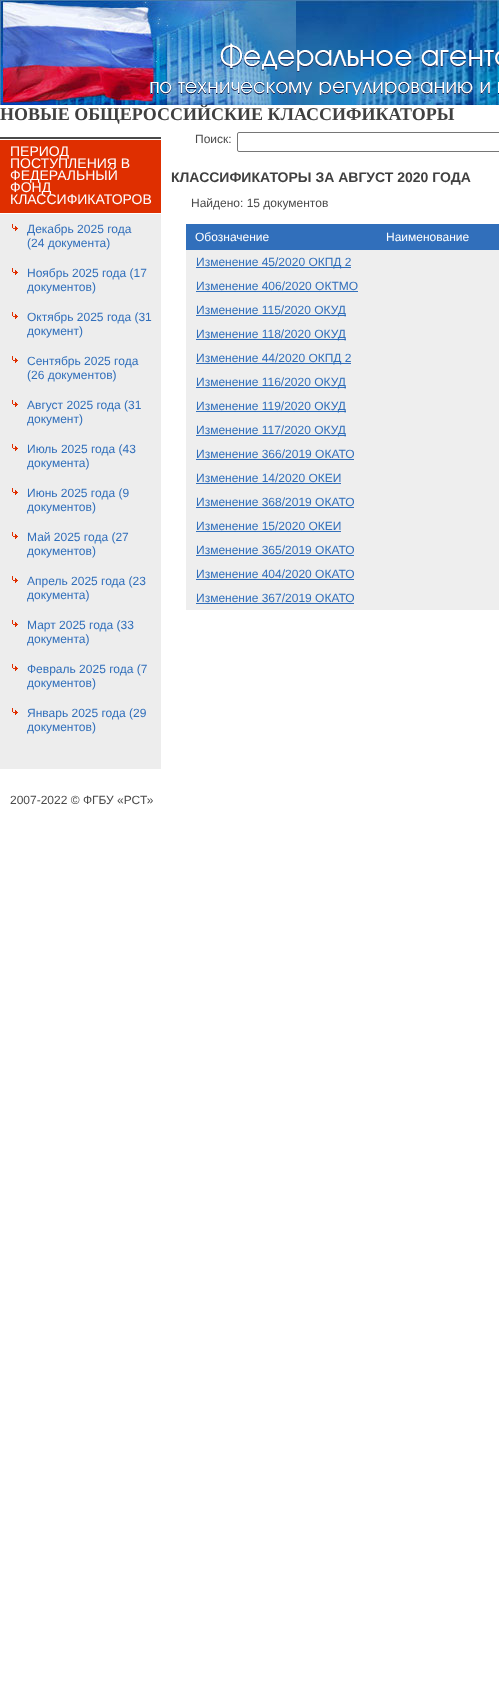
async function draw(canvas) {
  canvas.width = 499
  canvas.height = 1699
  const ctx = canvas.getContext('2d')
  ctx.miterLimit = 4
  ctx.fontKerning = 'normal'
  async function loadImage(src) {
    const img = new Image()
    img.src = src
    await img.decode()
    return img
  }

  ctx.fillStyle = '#fff'
  ctx.fillRect(0, 0, 499, 1699)
  ctx.drawImage(await loadImage('image0.png'), 0, 0, 296, 105)
  ctx.drawImage(await loadImage('image1.png'), 296, 0, 203, 105)
  ctx.drawImage(await loadImage('image2.png'), 150, 43, 349, 52)
  ctx.font = 'bold 18px Liberation Serif'
  ctx.fillStyle = '#404040'
  ctx.fillText('НОВЫЕ ОБЩЕРОССИЙСКИЕ КЛАССИФИКАТОРЫ', 0, 120)
  ctx.fillStyle = '#4a4a4a'
  ctx.fillRect(0, 137, 161, 2)
  ctx.fillStyle = '#df2f00'
  ctx.fillRect(0, 140, 161, 73)
  ctx.font = '14px Liberation Sans'
  ctx.fillStyle = '#fff'
  ctx.fillText('ПЕРИОД', 10, 156)
  ctx.fillText('ПОСТУПЛЕНИЯ В', 10, 168)
  ctx.fillText('ФЕДЕРАЛЬНЫЙ', 10, 180)
  ctx.fillText('ФОНД', 10, 192)
  ctx.fillText('КЛАССИФИКАТОРОВ', 10, 204)
  ctx.fillStyle = '#ededed'
  ctx.fillRect(0, 214, 161, 555)
  ctx.drawImage(await loadImage('image3.png'), 12, 224, 6, 7)
  ctx.font = '12px Liberation Sans'
  ctx.fillStyle = '#316fbb'
  ctx.fillText('Декабрь 2025 года', 27, 233)
  ctx.fillText('(24 документа)', 27, 247)
  ctx.drawImage(await loadImage('image3.png'), 12, 268, 6, 7)
  ctx.fillText('Ноябрь 2025 года (17', 27, 277)
  ctx.fillText('документов)', 27, 291)
  ctx.drawImage(await loadImage('image3.png'), 12, 312, 6, 7)
  ctx.fillText('Октябрь 2025 года (31', 27, 321)
  ctx.fillText('документ)', 27, 335)
  ctx.drawImage(await loadImage('image3.png'), 12, 356, 6, 7)
  ctx.fillText('Сентябрь 2025 года', 27, 365)
  ctx.fillText('(26 документов)', 27, 379)
  ctx.drawImage(await loadImage('image3.png'), 12, 400, 6, 7)
  ctx.fillText('Август 2025 года (31', 27, 409)
  ctx.fillText('документ)', 27, 423)
  ctx.drawImage(await loadImage('image3.png'), 12, 444, 6, 7)
  ctx.fillText('Июль 2025 года (43', 27, 453)
  ctx.fillText('документа)', 27, 467)
  ctx.drawImage(await loadImage('image3.png'), 12, 488, 6, 7)
  ctx.fillText('Июнь 2025 года (9', 27, 497)
  ctx.fillText('документов)', 27, 511)
  ctx.drawImage(await loadImage('image3.png'), 12, 532, 6, 7)
  ctx.fillText('Май 2025 года (27', 27, 541)
  ctx.fillText('документов)', 27, 555)
  ctx.drawImage(await loadImage('image3.png'), 12, 576, 6, 7)
  ctx.fillText('Апрель 2025 года (23', 27, 585)
  ctx.fillText('документа)', 27, 599)
  ctx.drawImage(await loadImage('image3.png'), 12, 620, 6, 7)
  ctx.fillText('Март 2025 года (33', 27, 629)
  ctx.fillText('документа)', 27, 643)
  ctx.drawImage(await loadImage('image3.png'), 12, 664, 6, 7)
  ctx.fillText('Февраль 2025 года (7', 27, 673)
  ctx.fillText('документов)', 27, 687)
  ctx.drawImage(await loadImage('image3.png'), 12, 708, 6, 7)
  ctx.fillText('Январь 2025 года (29', 27, 717)
  ctx.fillText('документов)', 27, 731)
  ctx.fillStyle = '#4a4a4a'
  ctx.fillText('Поиск:', 195, 143)
  ctx.beginPath()
  ctx.roundRect(237.5, 132.5, 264, 19, 1.5)
  ctx.strokeStyle = '#767676'
  ctx.stroke()
  ctx.font = 'bold 14px Liberation Sans'
  ctx.fillStyle = '#404040'
  ctx.fillText('КЛАССИФИКАТОРЫ ЗА АВГУСТ 2020 ГОДА', 171, 182)
  ctx.font = '12px Liberation Sans'
  ctx.fillStyle = '#4a4a4a'
  ctx.fillText('Найдено: 15 документов', 191, 207)
  ctx.fillStyle = '#316fbb'
  ctx.fillRect(186, 224, 313, 26)
  ctx.fillStyle = '#fff'
  ctx.fillText('Обозначение', 195, 241)
  ctx.fillText('Наименование', 386, 241)
  ctx.fillStyle = '#eee'
  ctx.fillRect(186, 250, 313, 360)
  ctx.fillStyle = '#316fbb'
  ctx.fillRect(196, 267, 155, 1)
  ctx.fillText('Изменение 45/2020 ОКПД 2', 196, 266)
  ctx.fillText('Изменение 406/2020 ОКТМО', 196, 290)
  ctx.fillRect(196, 291, 162, 1)
  ctx.fillRect(196, 315, 150, 1)
  ctx.fillText('Изменение 115/2020 ОКУД', 196, 314)
  ctx.fillRect(196, 339, 150, 1)
  ctx.fillText('Изменение 118/2020 ОКУД', 196, 338)
  ctx.fillRect(196, 363, 155, 1)
  ctx.fillText('Изменение 44/2020 ОКПД 2', 196, 362)
  ctx.fillRect(196, 387, 150, 1)
  ctx.fillText('Изменение 116/2020 ОКУД', 196, 386)
  ctx.fillRect(196, 411, 150, 1)
  ctx.fillText('Изменение 119/2020 ОКУД', 196, 410)
  ctx.fillRect(196, 435, 150, 1)
  ctx.fillText('Изменение 117/2020 ОКУД', 196, 434)
  ctx.fillText('Изменение 366/2019 ОКАТО', 196, 458)
  ctx.fillRect(196, 459, 158, 1)
  ctx.fillText('Изменение 14/2020 ОКЕИ', 196, 482)
  ctx.fillRect(196, 483, 145, 1)
  ctx.fillText('Изменение 368/2019 ОКАТО', 196, 506)
  ctx.fillRect(196, 507, 158, 1)
  ctx.fillText('Изменение 15/2020 ОКЕИ', 196, 530)
  ctx.fillRect(196, 531, 145, 1)
  ctx.fillText('Изменение 365/2019 ОКАТО', 196, 554)
  ctx.fillRect(196, 555, 158, 1)
  ctx.fillText('Изменение 404/2020 ОКАТО', 196, 578)
  ctx.fillRect(196, 579, 158, 1)
  ctx.fillText('Изменение 367/2019 ОКАТО', 196, 602)
  ctx.fillRect(196, 603, 158, 1)
  ctx.fillStyle = '#4a4a4a'
  ctx.fillText('2007-2022 © ФГБУ «РСТ»', 10, 804)
}

draw(document.querySelector('canvas'))
